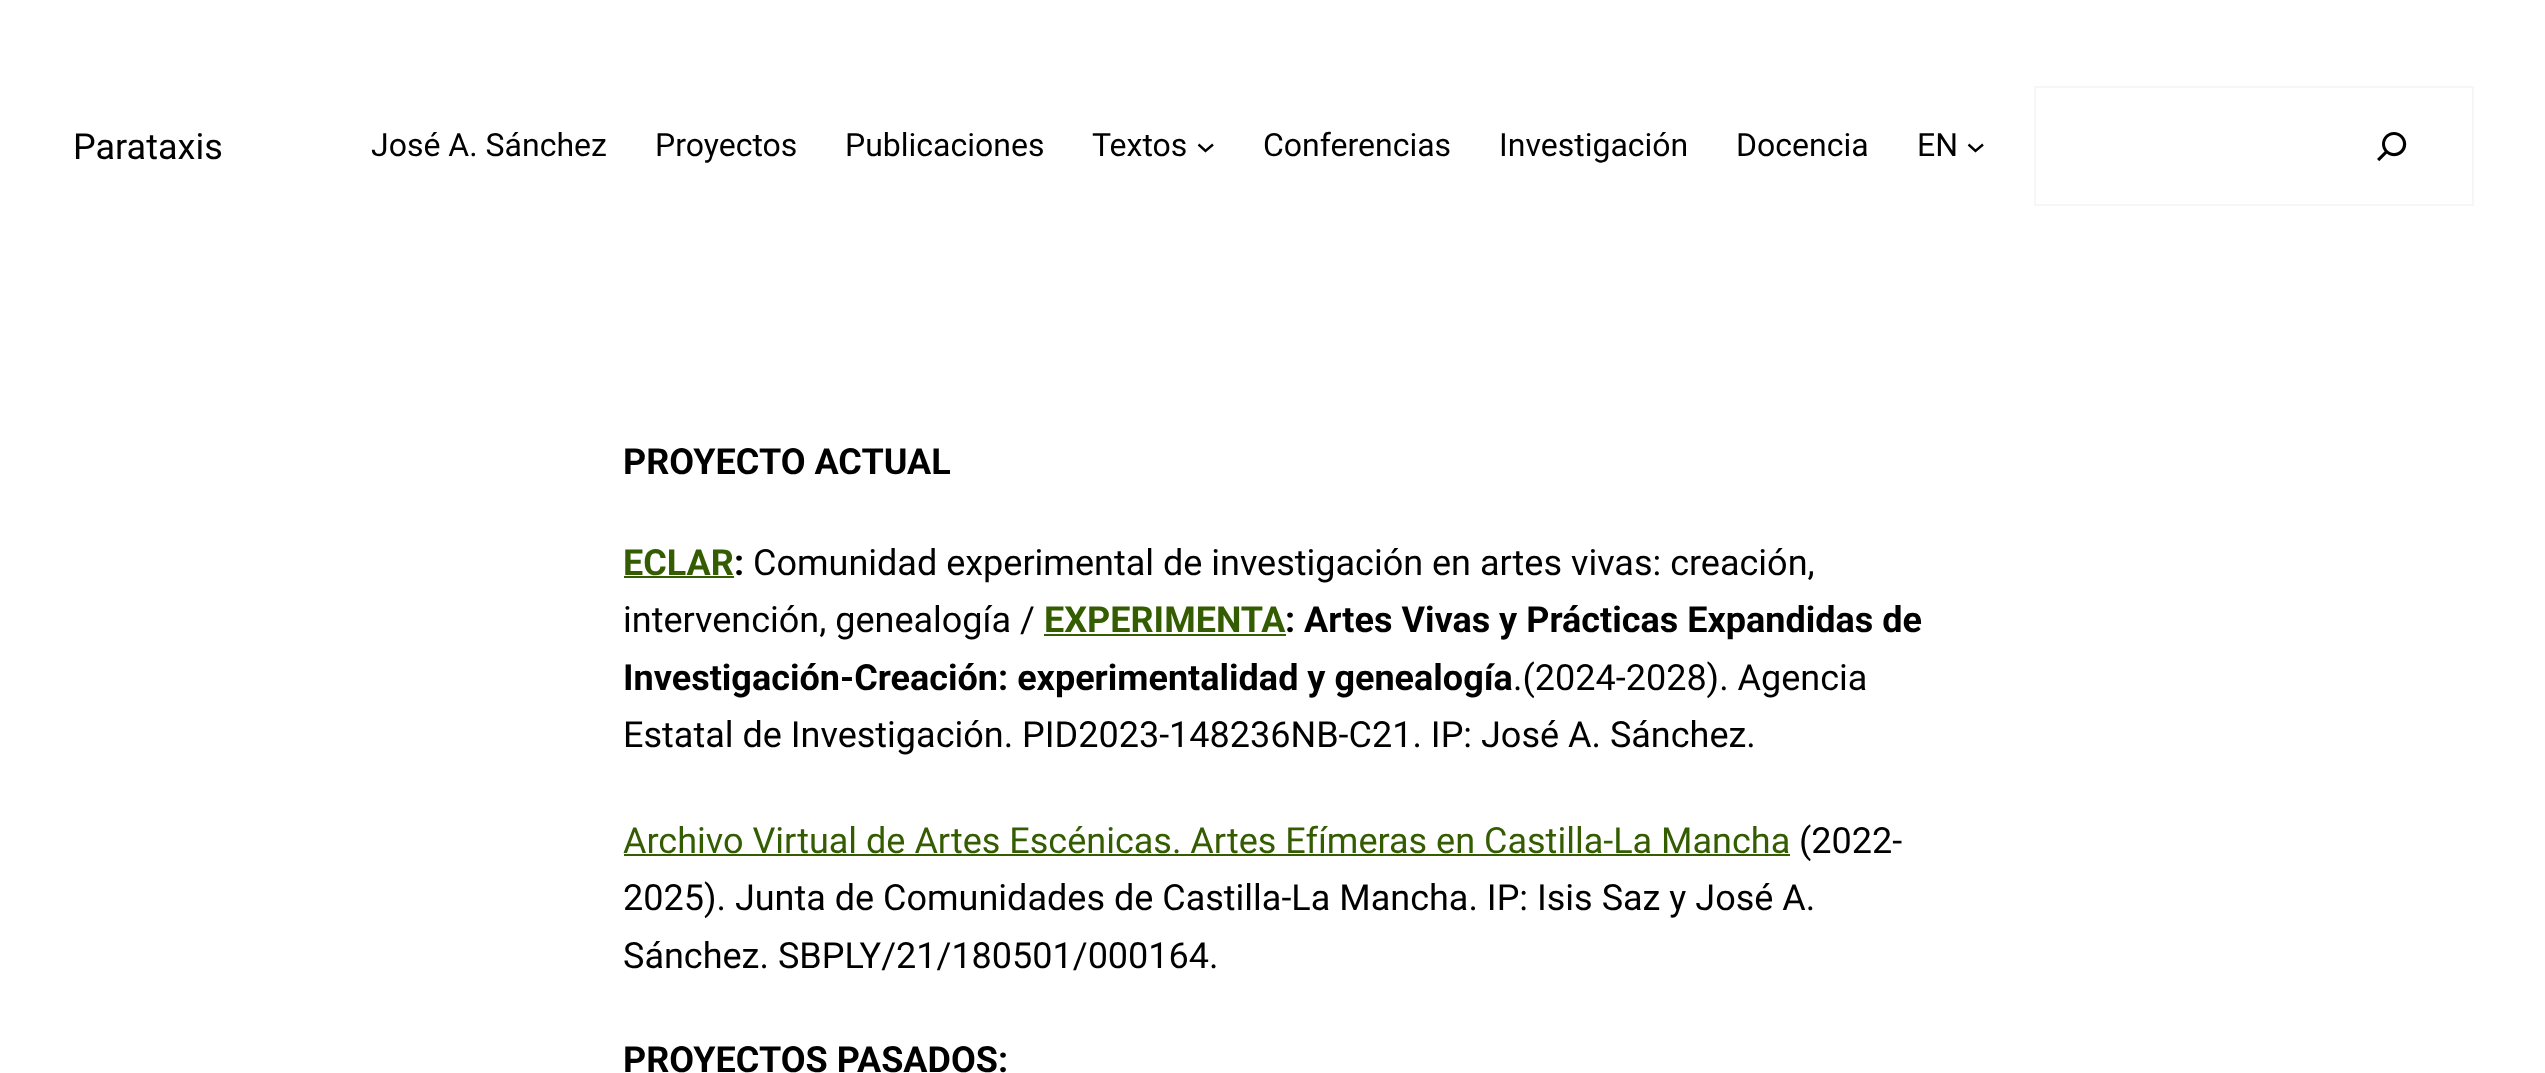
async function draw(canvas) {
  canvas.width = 2545
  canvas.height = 1073
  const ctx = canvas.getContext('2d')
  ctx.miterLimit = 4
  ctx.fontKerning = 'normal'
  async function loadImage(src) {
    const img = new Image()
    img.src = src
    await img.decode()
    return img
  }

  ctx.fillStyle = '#fff'
  ctx.fillRect(0, 0, 2545, 1073)
  ctx.font = '36px Roboto'
  ctx.fillStyle = '#000'
  ctx.fillText('Parataxis', 73, 159)
  ctx.font = '32px Roboto'
  ctx.fillText('José A. Sánchez', 371, 156)
  ctx.fillText('Proyectos', 655, 156)
  ctx.fillText('Publicaciones', 845, 156)
  ctx.fillText('Textos', 1092, 156)
  ctx.beginPath()
  ctx.moveTo(1198.5, 144.5)
  ctx.lineTo(1205.5, 151)
  ctx.lineTo(1213, 144.5)
  ctx.strokeStyle = '#000'
  ctx.lineWidth = 2.4
  ctx.stroke()
  ctx.fillText('Conferencias', 1263, 156)
  ctx.fillText('Investigación', 1499, 156)
  ctx.fillText('Docencia', 1736, 156)
  ctx.fillText('EN', 1917, 156)
  ctx.beginPath()
  ctx.moveTo(1968.5, 144.5)
  ctx.lineTo(1975.5, 151)
  ctx.lineTo(1983, 144.5)
  ctx.stroke()
  ctx.strokeStyle = '#f6f6f6'
  ctx.lineWidth = 2
  ctx.strokeRect(2035, 87, 438, 118)
  ctx.drawImage(await loadImage('image0.png'), 2377, 132, 30, 30)
  ctx.font = 'bold 36px Roboto'
  ctx.fillText('PROYECTO ACTUAL', 623, 474)
  ctx.fillStyle = '#345c00'
  ctx.fillText('ECLAR', 623, 575)
  ctx.fillStyle = '#000'
  ctx.fillText(':', 734, 575)
  ctx.fillStyle = '#345c00'
  ctx.fillRect(624, 576, 110, 2)
  ctx.font = '36px Roboto'
  ctx.fillStyle = '#000'
  ctx.fillText('Comunidad experimental de investigación en artes vivas: creación,', 753, 575)
  ctx.fillText('intervención, genealogía /', 623, 632)
  ctx.font = 'bold 36px Roboto'
  ctx.fillStyle = '#345c00'
  ctx.fillText('EXPERIMENTA', 1044, 632)
  ctx.fillStyle = '#000'
  ctx.fillText(': Artes Vivas y Prácticas Expandidas de', 1285, 632)
  ctx.fillStyle = '#345c00'
  ctx.fillRect(1044, 634, 242, 2)
  ctx.fillStyle = '#000'
  ctx.fillText('Investigación-Creación: experimentalidad y genealogía', 623, 690)
  ctx.font = '36px Roboto'
  ctx.fillText('.(2024-2028). Agencia', 1513, 690)
  ctx.fillText('Estatal de Investigación. PID2023-148236NB-C21. IP: José A. Sánchez.', 623, 747)
  ctx.fillStyle = '#345c00'
  ctx.fillText('Archivo Virtual de Artes Escénicas. Artes Efímeras en Castilla-La Mancha', 623, 853)
  ctx.fillRect(624, 854, 1166, 2)
  ctx.fillStyle = '#000'
  ctx.fillText('(2022-', 1799, 853)
  ctx.fillText('2025). Junta de Comunidades de Castilla-La Mancha. IP: Isis Saz y José A.', 623, 910)
  ctx.fillText('Sánchez. SBPLY/21/180501/000164.', 623, 968)
  ctx.font = 'bold 36px Roboto'
  ctx.fillText('PROYECTOS PASADOS:', 623, 1072)
}

draw(document.querySelector('canvas'))
